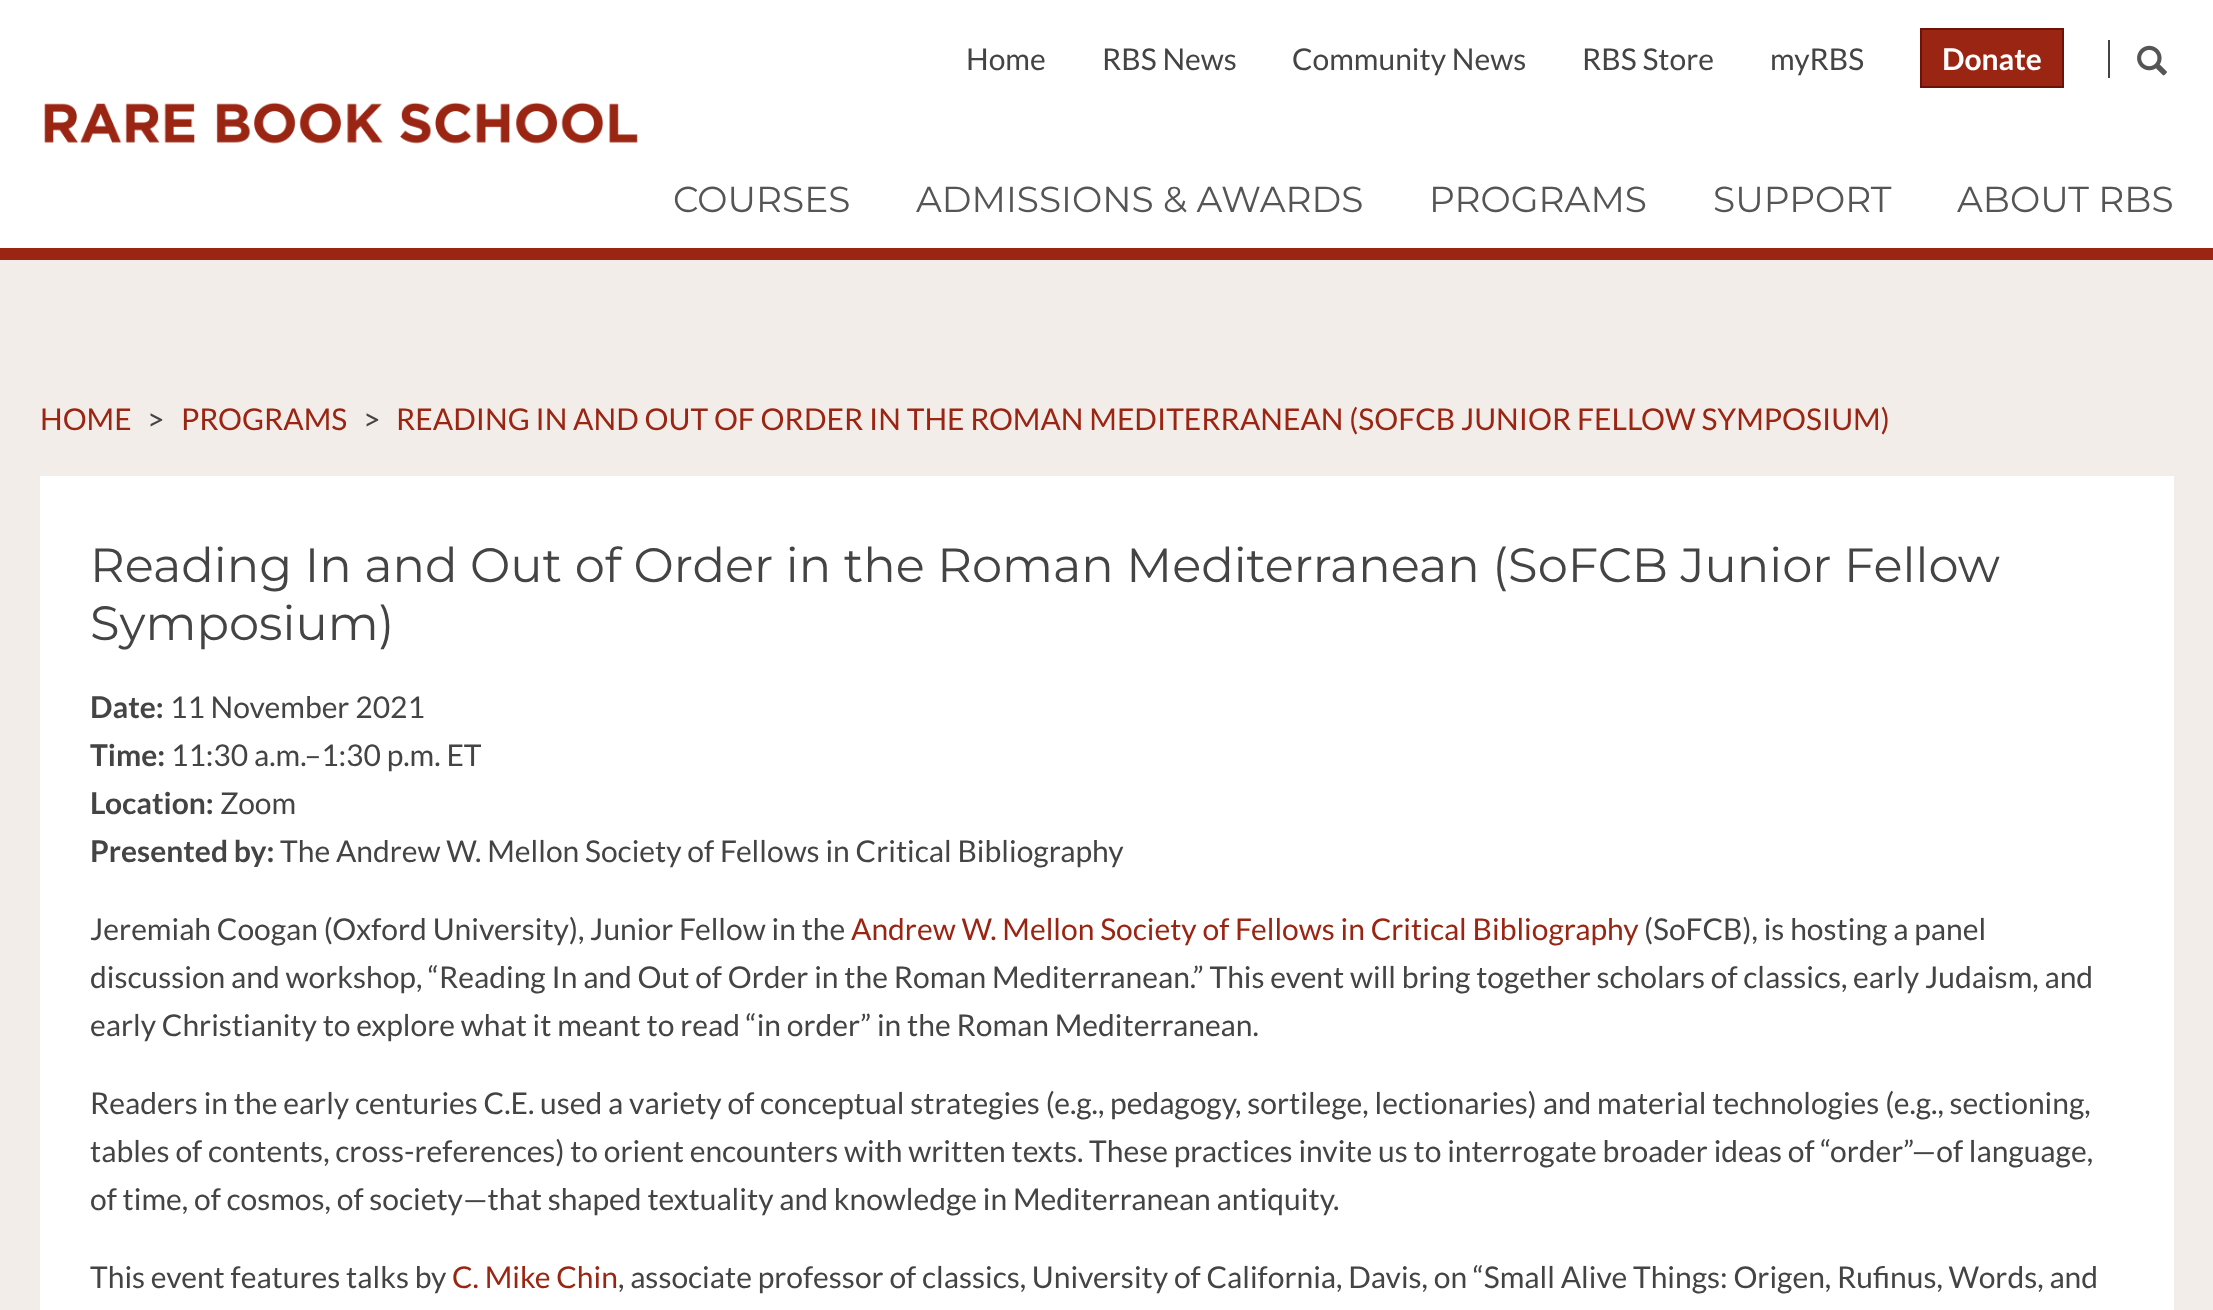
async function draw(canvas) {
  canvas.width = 2213
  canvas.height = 1310
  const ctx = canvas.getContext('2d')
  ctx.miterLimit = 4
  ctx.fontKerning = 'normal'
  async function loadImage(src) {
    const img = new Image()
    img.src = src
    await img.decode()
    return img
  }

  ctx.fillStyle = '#f2ede8'
  ctx.fillRect(0, 0, 2213, 1310)
  ctx.fillStyle = '#fff'
  ctx.fillRect(0, 0, 2213, 248)
  ctx.fillStyle = '#9a2513'
  ctx.fillRect(0, 248, 2213, 12)
  ctx.font = '30px Lato'
  ctx.fillStyle = '#444'
  ctx.fillText('Home', 966, 70)
  ctx.fillText('RBS News', 1102, 70)
  ctx.fillText('Community News', 1292, 70)
  ctx.fillText('RBS Store', 1582, 70)
  ctx.fillText('myRBS', 1770, 70)
  ctx.fillStyle = '#9a2513'
  ctx.beginPath()
  ctx.rect(1921, 29, 142, 58)
  ctx.fill()
  ctx.strokeStyle = '#6b1306'
  ctx.lineWidth = 2
  ctx.stroke()
  ctx.font = 'bold 30px Lato'
  ctx.fillStyle = '#fff'
  ctx.fillText('Donate', 1942, 70)
  ctx.fillStyle = '#444'
  ctx.fillRect(2108, 40, 2, 38)
  ctx.drawImage(await loadImage('image0.png'), 2137, 45, 30, 31)
  ctx.drawImage(await loadImage('image1.png'), 44, 102, 594, 42)
  ctx.font = '36px Montserrat'
  ctx.fillStyle = '#555'
  ctx.fillText('COURSES', 673, 212)
  ctx.fillText('ADMISSIONS & AWARDS', 916, 212)
  ctx.fillText('PROGRAMS', 1429, 212)
  ctx.fillText('SUPPORT', 1713, 212)
  ctx.fillText('ABOUT RBS', 1957, 212)
  ctx.font = '30px Lato'
  ctx.fillStyle = '#9a2513'
  ctx.fillText('HOME', 40, 430)
  ctx.fillStyle = '#444'
  ctx.fillText('>', 147, 430)
  ctx.fillStyle = '#9a2513'
  ctx.fillText('PROGRAMS', 181, 430)
  ctx.fillStyle = '#444'
  ctx.fillText('>', 363, 430)
  ctx.fillStyle = '#9a2513'
  ctx.fillText('READING IN AND OUT OF ORDER IN THE ROMAN MEDITERRANEAN (SOFCB JUNIOR FELLOW SYMPOSIUM)', 396, 430)
  ctx.fillStyle = '#fff'
  ctx.fillRect(40, 476, 2134, 834)
  ctx.font = '48px Montserrat'
  ctx.fillStyle = '#444'
  ctx.fillText('Reading In and Out of Order in the Roman Mediterranean (SoFCB Junior Fellow', 90, 582)
  ctx.fillText('Symposium)', 90, 640)
  ctx.font = 'bold 30px Lato'
  ctx.fillText('Date:', 90, 718)
  ctx.font = '30px Lato'
  ctx.fillText('11 November 2021', 170, 718)
  ctx.font = 'bold 30px Lato'
  ctx.fillText('Time:', 90, 766)
  ctx.font = '30px Lato'
  ctx.fillText('11:30 a.m.–1:30 p.m. ET', 171, 766)
  ctx.font = 'bold 30px Lato'
  ctx.fillText('Location:', 90, 814)
  ctx.font = '30px Lato'
  ctx.fillText('Zoom', 220, 814)
  ctx.font = 'bold 30px Lato'
  ctx.fillText('Presented by:', 90, 862)
  ctx.font = '30px Lato'
  ctx.fillText('The Andrew W. Mellon Society of Fellows in Critical Bibliography', 280, 862)
  ctx.fillText('Jeremiah Coogan (Oxford University), Junior Fellow in the', 90, 940)
  ctx.fillStyle = '#9a2513'
  ctx.fillText('Andrew W. Mellon Society of Fellows in Critical Bibliography', 851, 940)
  ctx.fillStyle = '#444'
  ctx.fillText('(SoFCB), is hosting a panel', 1644, 940)
  ctx.fillText('discussion and workshop, “Reading In and Out of Order in the Roman Mediterranean.” This event will bring together scholars of classics, early Judaism, and', 90, 988)
  ctx.fillText('early Christianity to explore what it meant to read “in order” in the Roman Mediterranean.', 90, 1036)
  ctx.fillText('Readers in the early centuries C.E. used a variety of conceptual strategies (e.g., pedagogy, sortilege, lectionaries) and material technologies (e.g., sectioning,', 90, 1114)
  ctx.fillText('tables of contents, cross-references) to orient encounters with written texts. These practices invite us to interrogate broader ideas of “order”—of language,', 90, 1162)
  ctx.fillText('of time, of cosmos, of society—that shaped textuality and knowledge in Mediterranean antiquity.', 90, 1210)
  ctx.fillText('This event features talks by', 90, 1288)
  ctx.fillStyle = '#9a2513'
  ctx.fillText('C. Mike Chin', 452, 1288)
  ctx.fillStyle = '#444'
  ctx.fillText(', associate professor of classics, University of California, Davis, on “Small Alive Things: Origen, Rufinus, Words, and', 618, 1288)
}

draw(document.querySelector('canvas'))
